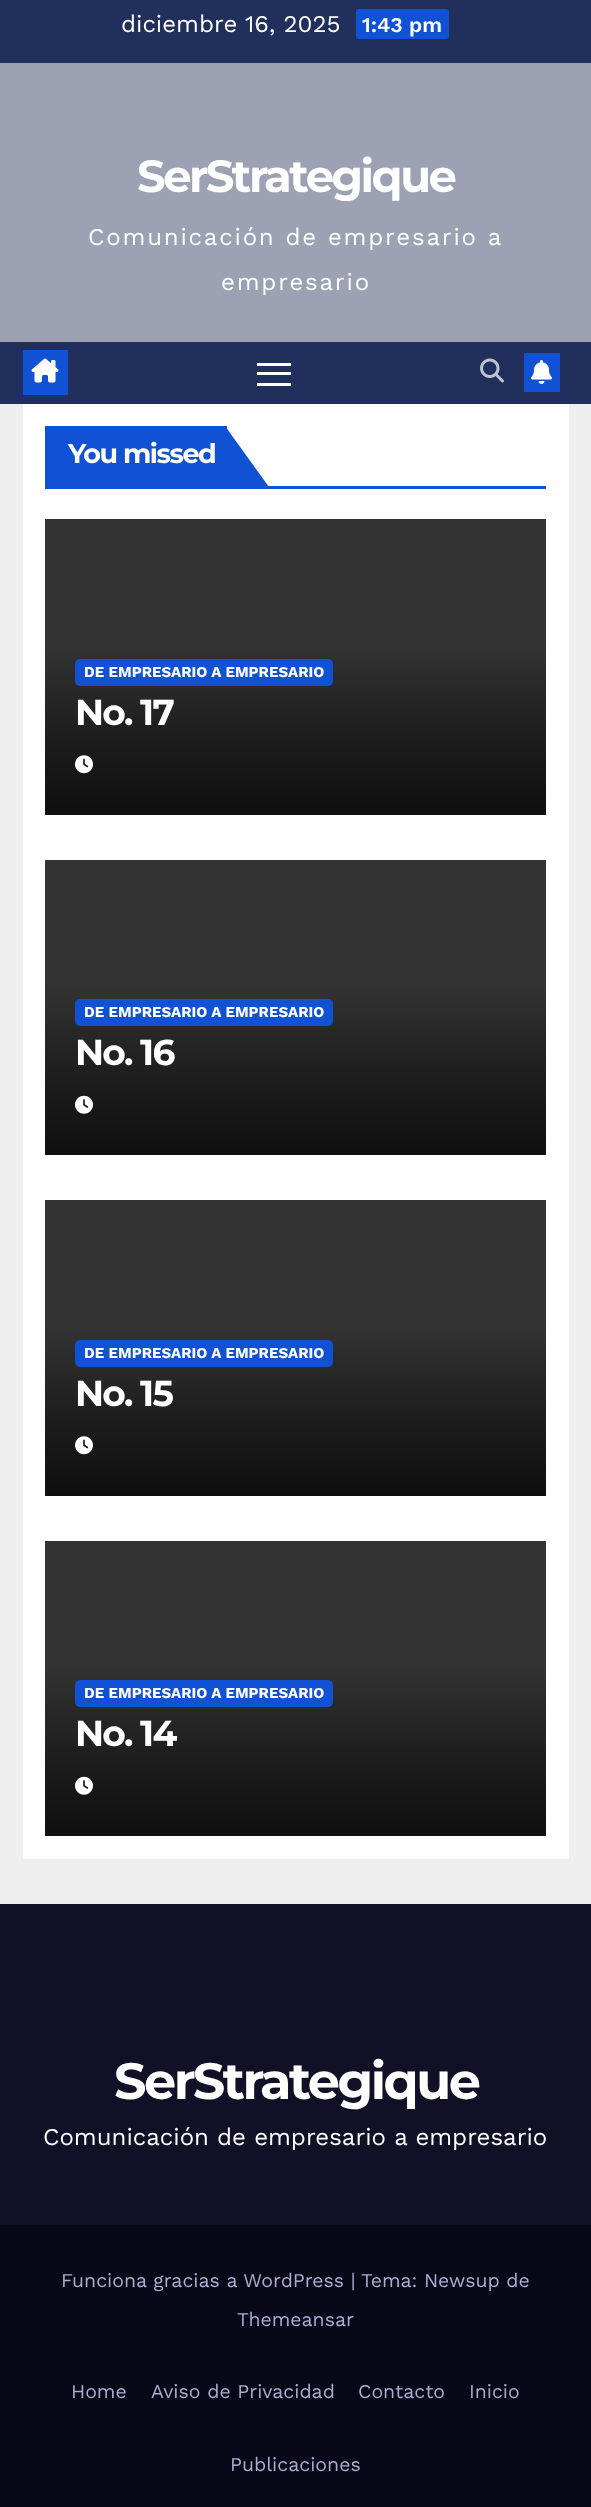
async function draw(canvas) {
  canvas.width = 591
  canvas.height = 2507
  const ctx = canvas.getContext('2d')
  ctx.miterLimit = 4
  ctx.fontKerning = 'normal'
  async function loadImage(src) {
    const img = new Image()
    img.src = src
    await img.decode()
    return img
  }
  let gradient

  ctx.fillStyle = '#eee'
  ctx.fillRect(0, 0, 591, 2507)
  ctx.fillStyle = '#202f5b'
  ctx.fillRect(0, 0, 591, 63)
  ctx.font = '24px Work Sans'
  ctx.fillStyle = '#fff'
  ctx.fillText('diciembre 16, 2025', 121, 32)
  ctx.fillStyle = '#1151d3'
  ctx.beginPath()
  ctx.roundRect(356, 9, 93, 30, 3)
  ctx.fill()
  ctx.font = '600 21px Work Sans'
  ctx.fillStyle = '#fff'
  ctx.fillText('1:43 pm', 362, 32)
  ctx.fillStyle = '#9ca2b3'
  ctx.fillRect(0, 63, 591, 279)
  ctx.letterSpacing = '-2.5px'
  ctx.font = 'bold 45px Montserrat'
  ctx.fillStyle = '#fff'
  ctx.fillText('SerStrategique', 137, 192)
  ctx.letterSpacing = '1.8px'
  ctx.font = '24px Work Sans'
  ctx.fillText('Comunicación de empresario a', 88, 245)
  ctx.fillText('empresario', 221, 290)
  ctx.fillStyle = '#202f5b'
  ctx.fillRect(0, 342, 591, 62)
  ctx.fillStyle = '#1151d3'
  ctx.fillRect(23, 350, 45, 45)
  ctx.drawImage(await loadImage('image0.png'), 31, 358, 28, 25)
  ctx.fillStyle = '#fff'
  ctx.fillRect(257, 363, 34, 3)
  ctx.fillRect(257, 372, 34, 3)
  ctx.fillRect(257, 383, 34, 3)
  ctx.drawImage(await loadImage('image1.png'), 480, 358, 24, 25)
  ctx.fillStyle = '#1151d3'
  ctx.fillRect(524, 353, 36, 39)
  ctx.drawImage(await loadImage('image2.png'), 531, 360, 21, 24)
  ctx.fillStyle = '#fff'
  ctx.fillRect(23, 404, 546, 1455)
  ctx.fillStyle = '#1151d3'
  ctx.fillRect(45, 486, 501, 3)
  ctx.fillRect(45, 426, 182, 60)
  ctx.letterSpacing = '-1.4px'
  ctx.font = 'bold 27px Montserrat'
  ctx.fillStyle = '#fff'
  ctx.fillText('You missed', 68, 463)
  ctx.fillStyle = '#1151d3'
  ctx.beginPath()
  ctx.moveTo(225, 426)
  ctx.lineTo(225, 487)
  ctx.lineTo(269, 487)
  ctx.closePath()
  ctx.fill()
  ctx.fillStyle = '#333'
  ctx.fillRect(45, 519, 501, 125)
  gradient = ctx.createLinearGradient(296, 644, 296, 815)
  gradient.addColorStop(0, '#333')
  gradient.addColorStop(0.5, '#1f1f1f')
  gradient.addColorStop(1, '#0f0f0f')
  ctx.fillStyle = gradient
  ctx.fillRect(45, 644, 501, 171)
  ctx.fillStyle = '#1151d3'
  ctx.beginPath()
  ctx.roundRect(75, 659, 258, 27, 5)
  ctx.fill()
  ctx.letterSpacing = '0px'
  ctx.font = 'bold 15px Work Sans'
  ctx.fillStyle = '#fff'
  ctx.fillText('DE EMPRESARIO A EMPRESARIO', 84, 677)
  ctx.letterSpacing = '-1.75px'
  ctx.font = 'bold 36px Montserrat'
  ctx.fillText('No. 17', 75, 725)
  ctx.drawImage(await loadImage('image3.png'), 75, 755, 18, 19)
  ctx.fillStyle = '#333'
  ctx.fillRect(45, 860, 501, 124)
  gradient = ctx.createLinearGradient(296, 984, 296, 1155)
  gradient.addColorStop(0, '#333')
  gradient.addColorStop(0.5, '#1f1f1f')
  gradient.addColorStop(1, '#0f0f0f')
  ctx.fillStyle = gradient
  ctx.fillRect(45, 984, 501, 171)
  ctx.fillStyle = '#1151d3'
  ctx.beginPath()
  ctx.roundRect(75, 999, 258, 27, 5)
  ctx.fill()
  ctx.letterSpacing = '0px'
  ctx.font = 'bold 15px Work Sans'
  ctx.fillStyle = '#fff'
  ctx.fillText('DE EMPRESARIO A EMPRESARIO', 84, 1017)
  ctx.letterSpacing = '-1.75px'
  ctx.font = 'bold 36px Montserrat'
  ctx.fillText('No. 16', 75, 1065)
  ctx.drawImage(await loadImage('image4.png'), 75, 1095, 18, 19)
  ctx.fillStyle = '#333'
  ctx.fillRect(45, 1200, 501, 125)
  gradient = ctx.createLinearGradient(296, 1325, 296, 1496)
  gradient.addColorStop(0, '#333')
  gradient.addColorStop(0.5, '#1f1f1f')
  gradient.addColorStop(1, '#0f0f0f')
  ctx.fillStyle = gradient
  ctx.fillRect(45, 1325, 501, 171)
  ctx.fillStyle = '#1151d3'
  ctx.beginPath()
  ctx.roundRect(75, 1340, 258, 27, 5)
  ctx.fill()
  ctx.letterSpacing = '0px'
  ctx.font = 'bold 15px Work Sans'
  ctx.fillStyle = '#fff'
  ctx.fillText('DE EMPRESARIO A EMPRESARIO', 84, 1358)
  ctx.letterSpacing = '-1.75px'
  ctx.font = 'bold 36px Montserrat'
  ctx.fillText('No. 15', 75, 1406)
  ctx.drawImage(await loadImage('image3.png'), 75, 1436, 18, 19)
  ctx.fillStyle = '#333'
  ctx.fillRect(45, 1541, 501, 124)
  gradient = ctx.createLinearGradient(296, 1665, 296, 1836)
  gradient.addColorStop(0, '#333')
  gradient.addColorStop(0.5, '#1f1f1f')
  gradient.addColorStop(1, '#0f0f0f')
  ctx.fillStyle = gradient
  ctx.fillRect(45, 1665, 501, 171)
  ctx.fillStyle = '#1151d3'
  ctx.beginPath()
  ctx.roundRect(75, 1680, 258, 27, 5)
  ctx.fill()
  ctx.letterSpacing = '0px'
  ctx.font = 'bold 15px Work Sans'
  ctx.fillStyle = '#fff'
  ctx.fillText('DE EMPRESARIO A EMPRESARIO', 84, 1698)
  ctx.letterSpacing = '-1.75px'
  ctx.font = 'bold 36px Montserrat'
  ctx.fillText('No. 14', 75, 1746)
  ctx.drawImage(await loadImage('image4.png'), 75, 1776, 18, 19)
  ctx.fillStyle = '#121026'
  ctx.fillRect(0, 1904, 591, 321)
  ctx.letterSpacing = '-2.5px'
  ctx.font = 'bold 51px Montserrat'
  ctx.fillStyle = '#fff'
  ctx.fillText('SerStrategique', 114, 2099)
  ctx.letterSpacing = '0px'
  ctx.font = '24px Work Sans'
  ctx.fillText('Comunicación de empresario a empresario', 43, 2145)
  ctx.fillStyle = '#090818'
  ctx.fillRect(0, 2225, 591, 282)
  ctx.font = '19.5px Work Sans'
  ctx.fillStyle = '#aaaed1'
  ctx.fillText('Funciona gracias a WordPress |', 61, 2287)
  ctx.fillText('Tema: Newsup de', 361, 2287)
  ctx.fillText('Themeansar', 237, 2326)
  ctx.fillText('Home', 71, 2398)
  ctx.fillText('Aviso de Privacidad', 151, 2398)
  ctx.fillText('Contacto', 358, 2398)
  ctx.fillText('Inicio', 469, 2398)
  ctx.fillText('Publicaciones', 230, 2471)
}

draw(document.querySelector('canvas'))
